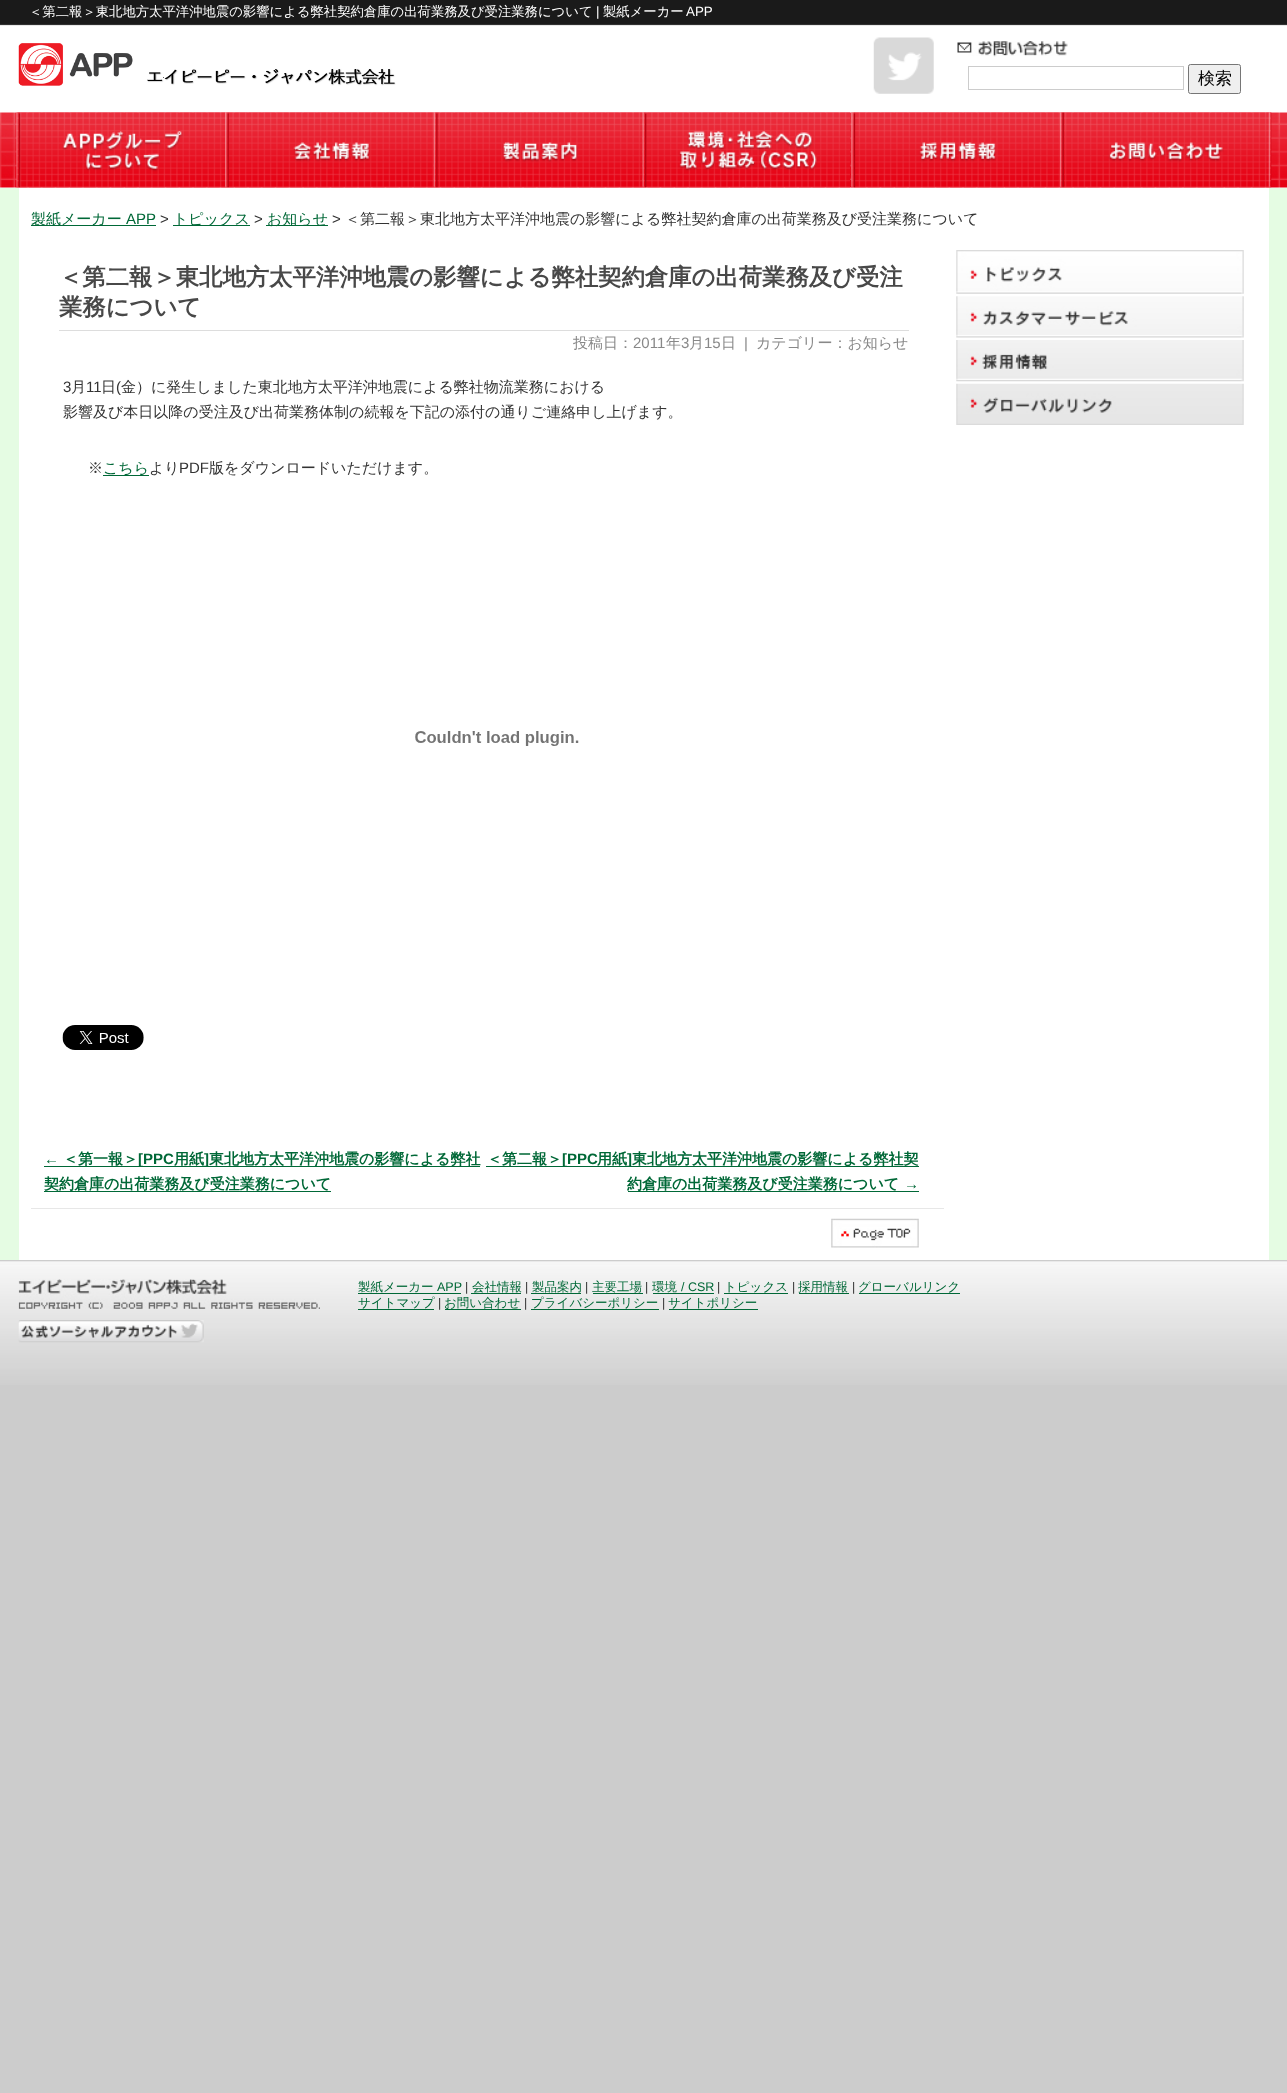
async function draw(canvas) {
  canvas.width = 1287
  canvas.height = 2093
  const ctx = canvas.getContext('2d')
  ctx.miterLimit = 4
  ctx.fontKerning = 'normal'
  async function loadImage(src) {
    const img = new Image()
    img.src = src
    await img.decode()
    return img
  }

  ctx.fillStyle = '#ccc'
  ctx.fillRect(0, 0, 1287, 2093)
  ctx.fillStyle = '#fff'
  ctx.fillRect(0, 187, 1287, 1)
  ctx.drawImage(await loadImage('image0.png'), 0, 0, 1287, 188)
  ctx.font = '500 13.35px WenQuanYi Zen Hei'
  ctx.fillText('＜第二報＞東北地方太平洋沖地震の影響による弊社契約倉庫の出荷業務及び受注業務について', 29, 16)
  ctx.font = '13.35px Liberation Sans'
  ctx.fillText('|', 596, 16)
  ctx.font = '500 13.35px WenQuanYi Zen Hei'
  ctx.fillText('製紙メーカー', 603, 16)
  ctx.font = '13.35px Liberation Sans'
  ctx.fillText('APP', 686, 16)
  ctx.drawImage(await loadImage('image1.png'), 18, 43, 378, 43)
  ctx.drawImage(await loadImage('image2.png'), 873, 37, 61, 57)
  ctx.drawImage(await loadImage('image3.png'), 957, 41, 111, 16)
  ctx.strokeStyle = '#ccc'
  ctx.strokeRect(968.5, 66.5, 215, 23)
  ctx.fillStyle = '#efefef'
  ctx.beginPath()
  ctx.roundRect(1188.5, 64.5, 52, 29, 2)
  ctx.fill()
  ctx.strokeStyle = '#767676'
  ctx.stroke()
  ctx.font = '500 17px WenQuanYi Zen Hei'
  ctx.fillStyle = '#000'
  ctx.fillText('検索', 1198, 84)
  ctx.drawImage(await loadImage('image4.png'), 16, 112, 209, 76)
  ctx.drawImage(await loadImage('image5.png'), 225, 112, 209, 76)
  ctx.drawImage(await loadImage('image6.png'), 433, 112, 210, 76)
  ctx.drawImage(await loadImage('image7.png'), 642, 112, 208, 76)
  ctx.drawImage(await loadImage('image8.png'), 851, 112, 209, 76)
  ctx.drawImage(await loadImage('image9.png'), 1060, 112, 212, 76)
  ctx.fillStyle = '#e5fce3'
  ctx.fillRect(0, 188, 1287, 1072)
  ctx.fillStyle = '#fff'
  ctx.fillRect(19, 188, 1250, 1072)
  ctx.fillStyle = '#006837'
  ctx.fillRect(31, 225, 125, 1)
  ctx.font = '500 15px WenQuanYi Zen Hei'
  ctx.fillText('製紙メーカー', 31, 224)
  ctx.font = '15px Liberation Sans'
  ctx.fillText('APP', 126, 224)
  ctx.fillStyle = '#333'
  ctx.fillText('>', 160, 224)
  ctx.fillStyle = '#006837'
  ctx.fillRect(173, 225, 77, 1)
  ctx.font = '500 15px WenQuanYi Zen Hei'
  ctx.fillText('トピックス', 173, 224)
  ctx.font = '15px Liberation Sans'
  ctx.fillStyle = '#333'
  ctx.fillText('>', 254, 224)
  ctx.fillStyle = '#006837'
  ctx.fillRect(266, 225, 62, 1)
  ctx.font = '500 15px WenQuanYi Zen Hei'
  ctx.fillText('お知らせ', 267, 224)
  ctx.font = '15px Liberation Sans'
  ctx.fillStyle = '#333'
  ctx.fillText('>', 332, 224)
  ctx.font = '500 15px WenQuanYi Zen Hei'
  ctx.fillText('＜第二報＞東北地方太平洋沖地震の影響による弊社契約倉庫の出荷業務及び受注業務について', 345, 224)
  ctx.fillStyle = '#ddd'
  ctx.fillRect(59, 330, 850, 1)
  ctx.font = 'bold 23.35px WenQuanYi Zen Hei'
  ctx.fillStyle = '#484848'
  ctx.fillText('＜第二報＞東北地方太平洋沖地震の影響による弊社契約倉庫の出荷業務及び受注', 59, 285)
  ctx.fillText('業務について', 59, 315)
  ctx.font = '500 15px WenQuanYi Zen Hei'
  ctx.fillStyle = '#888'
  ctx.fillText('投稿日：', 573, 348)
  ctx.font = '15px Liberation Sans'
  ctx.fillText('2011', 633, 348)
  ctx.font = '500 15px WenQuanYi Zen Hei'
  ctx.fillText('年', 666, 348)
  ctx.font = '15px Liberation Sans'
  ctx.fillText('3', 681, 348)
  ctx.font = '500 15px WenQuanYi Zen Hei'
  ctx.fillText('月', 689, 348)
  ctx.font = '15px Liberation Sans'
  ctx.fillText('15', 704, 348)
  ctx.font = '500 15px WenQuanYi Zen Hei'
  ctx.fillText('日', 721, 348)
  ctx.font = '15px Liberation Sans'
  ctx.fillText('|', 744, 348)
  ctx.font = '500 15px WenQuanYi Zen Hei'
  ctx.fillText('カテゴリー：お知らせ', 756, 348)
  ctx.font = '15px Liberation Sans'
  ctx.fillStyle = '#333'
  ctx.fillText('3', 63, 392)
  ctx.font = '500 15px WenQuanYi Zen Hei'
  ctx.fillText('月', 71, 392)
  ctx.font = '15px Liberation Sans'
  ctx.fillText('11', 86, 392)
  ctx.font = '500 15px WenQuanYi Zen Hei'
  ctx.fillText('日', 101, 392)
  ctx.font = '15px Liberation Sans'
  ctx.fillText('(', 116, 392)
  ctx.font = '500 15px WenQuanYi Zen Hei'
  ctx.fillText('金）に発生しました東北地方太平洋沖地震による弊社物流業務における', 121, 392)
  ctx.fillText('影響及び本日以降の受注及び出荷業務体制の続報を下記の添付の通りご連絡申し上げます。', 63, 417)
  ctx.fillText('※', 88, 473)
  ctx.fillStyle = '#006837'
  ctx.fillRect(103, 475, 46, 1)
  ctx.fillText('こちら', 103, 473)
  ctx.fillStyle = '#333'
  ctx.fillText('より', 149, 473)
  ctx.font = '15px Liberation Sans'
  ctx.fillText('PDF', 179, 473)
  ctx.font = '500 15px WenQuanYi Zen Hei'
  ctx.fillText('版をダウンロードいただけます。', 209, 473)
  ctx.drawImage(await loadImage('image10.png'), 415, 731, 164, 15)
  ctx.drawImage(await loadImage('image11.png'), 62, 1025, 82, 25)
  ctx.font = 'bold 15px Liberation Sans'
  ctx.fillStyle = '#006837'
  ctx.fillText('←', 44, 1164)
  ctx.fillRect(44, 1166, 436, 1)
  ctx.font = 'bold 15px WenQuanYi Zen Hei'
  ctx.fillText('＜第一報＞', 63, 1164)
  ctx.font = 'bold 15px Liberation Sans'
  ctx.fillText('[PPC', 138, 1164)
  ctx.font = 'bold 15px WenQuanYi Zen Hei'
  ctx.fillText('用紙', 174, 1164)
  ctx.font = 'bold 15px Liberation Sans'
  ctx.fillText(']', 204, 1164)
  ctx.font = 'bold 15px WenQuanYi Zen Hei'
  ctx.fillText('東北地方太平洋沖地震の影響による弊社', 209, 1164)
  ctx.fillRect(44, 1191, 287, 1)
  ctx.fillText('契約倉庫の出荷業務及び受注業務について', 44, 1189)
  ctx.fillText('＜第二報＞', 487, 1164)
  ctx.fillRect(486, 1166, 433, 1)
  ctx.font = 'bold 15px Liberation Sans'
  ctx.fillText('[PPC', 562, 1164)
  ctx.font = 'bold 15px WenQuanYi Zen Hei'
  ctx.fillText('用紙', 597, 1164)
  ctx.font = 'bold 15px Liberation Sans'
  ctx.fillText(']', 627, 1164)
  ctx.font = 'bold 15px WenQuanYi Zen Hei'
  ctx.fillText('東北地方太平洋沖地震の影響による弊社契', 632, 1164)
  ctx.fillRect(628, 1191, 291, 1)
  ctx.fillText('約倉庫の出荷業務及び受注業務について', 627, 1189)
  ctx.font = 'bold 15px Liberation Sans'
  ctx.fillText('→', 904, 1189)
  ctx.fillStyle = '#e7e7e7'
  ctx.fillRect(31, 1208, 913, 1)
  ctx.drawImage(await loadImage('image12.png'), 831, 1218, 88, 30)
  ctx.drawImage(await loadImage('image13.png'), 956, 250, 288, 44)
  ctx.drawImage(await loadImage('image14.png'), 956, 296, 288, 42)
  ctx.drawImage(await loadImage('image15.png'), 956, 340, 288, 42)
  ctx.drawImage(await loadImage('image16.png'), 956, 383, 288, 42)
  ctx.drawImage(await loadImage('image17.png'), 0, 1260, 1287, 125)
  ctx.drawImage(await loadImage('image18.png'), 18, 1279, 302, 30)
  ctx.font = '500 12.5px WenQuanYi Zen Hei'
  ctx.fillStyle = '#006837'
  ctx.fillText('製紙メーカー', 358, 1291)
  ctx.fillRect(358, 1293, 103, 1)
  ctx.font = '12.5px Liberation Sans'
  ctx.fillText('APP', 437, 1291)
  ctx.fillStyle = '#333'
  ctx.fillText('|', 465, 1291)
  ctx.font = '500 12.5px WenQuanYi Zen Hei'
  ctx.fillStyle = '#006837'
  ctx.fillText('会社情報', 472, 1291)
  ctx.fillRect(471, 1293, 50, 1)
  ctx.font = '12.5px Liberation Sans'
  ctx.fillStyle = '#333'
  ctx.fillText('|', 525, 1291)
  ctx.font = '500 12.5px WenQuanYi Zen Hei'
  ctx.fillStyle = '#006837'
  ctx.fillText('製品案内', 532, 1291)
  ctx.fillRect(531, 1293, 50, 1)
  ctx.font = '12.5px Liberation Sans'
  ctx.fillStyle = '#333'
  ctx.fillText('|', 585, 1291)
  ctx.font = '500 12.5px WenQuanYi Zen Hei'
  ctx.fillStyle = '#006837'
  ctx.fillText('主要工場', 592, 1291)
  ctx.fillRect(593, 1293, 50, 1)
  ctx.font = '12.5px Liberation Sans'
  ctx.fillStyle = '#333'
  ctx.fillText('|', 645, 1291)
  ctx.font = '500 12.5px WenQuanYi Zen Hei'
  ctx.fillStyle = '#006837'
  ctx.fillText('環境', 652, 1291)
  ctx.fillRect(653, 1293, 61, 1)
  ctx.font = '12.5px Liberation Sans'
  ctx.fillText('/ CSR', 681, 1291)
  ctx.fillStyle = '#333'
  ctx.fillText('|', 717, 1291)
  ctx.font = '500 12.5px WenQuanYi Zen Hei'
  ctx.fillStyle = '#006837'
  ctx.fillText('トピックス', 724, 1291)
  ctx.fillRect(724, 1293, 64, 1)
  ctx.font = '12.5px Liberation Sans'
  ctx.fillStyle = '#333'
  ctx.fillText('|', 792, 1291)
  ctx.font = '500 12.5px WenQuanYi Zen Hei'
  ctx.fillStyle = '#006837'
  ctx.fillText('採用情報', 798, 1291)
  ctx.fillRect(799, 1293, 50, 1)
  ctx.font = '12.5px Liberation Sans'
  ctx.fillStyle = '#333'
  ctx.fillText('|', 852, 1291)
  ctx.font = '500 12.5px WenQuanYi Zen Hei'
  ctx.fillStyle = '#006837'
  ctx.fillText('グローバルリンク', 858, 1291)
  ctx.fillRect(859, 1293, 101, 1)
  ctx.fillText('サイトマップ', 358, 1307)
  ctx.fillRect(358, 1309, 76, 1)
  ctx.font = '12.5px Liberation Sans'
  ctx.fillStyle = '#333'
  ctx.fillText('|', 438, 1307)
  ctx.font = '500 12.5px WenQuanYi Zen Hei'
  ctx.fillStyle = '#006837'
  ctx.fillText('お問い合わせ', 444, 1307)
  ctx.fillRect(445, 1309, 76, 1)
  ctx.font = '12.5px Liberation Sans'
  ctx.fillStyle = '#333'
  ctx.fillText('|', 524, 1307)
  ctx.font = '500 12.5px WenQuanYi Zen Hei'
  ctx.fillStyle = '#006837'
  ctx.fillText('プライバシーポリシー', 531, 1307)
  ctx.fillRect(531, 1309, 128, 1)
  ctx.font = '12.5px Liberation Sans'
  ctx.fillStyle = '#333'
  ctx.fillText('|', 662, 1307)
  ctx.font = '500 12.5px WenQuanYi Zen Hei'
  ctx.fillStyle = '#006837'
  ctx.fillText('サイトポリシー', 668, 1307)
  ctx.fillRect(669, 1309, 89, 1)
  ctx.drawImage(await loadImage('image19.png'), 18, 1320, 186, 23)
}

draw(document.querySelector('canvas'))
